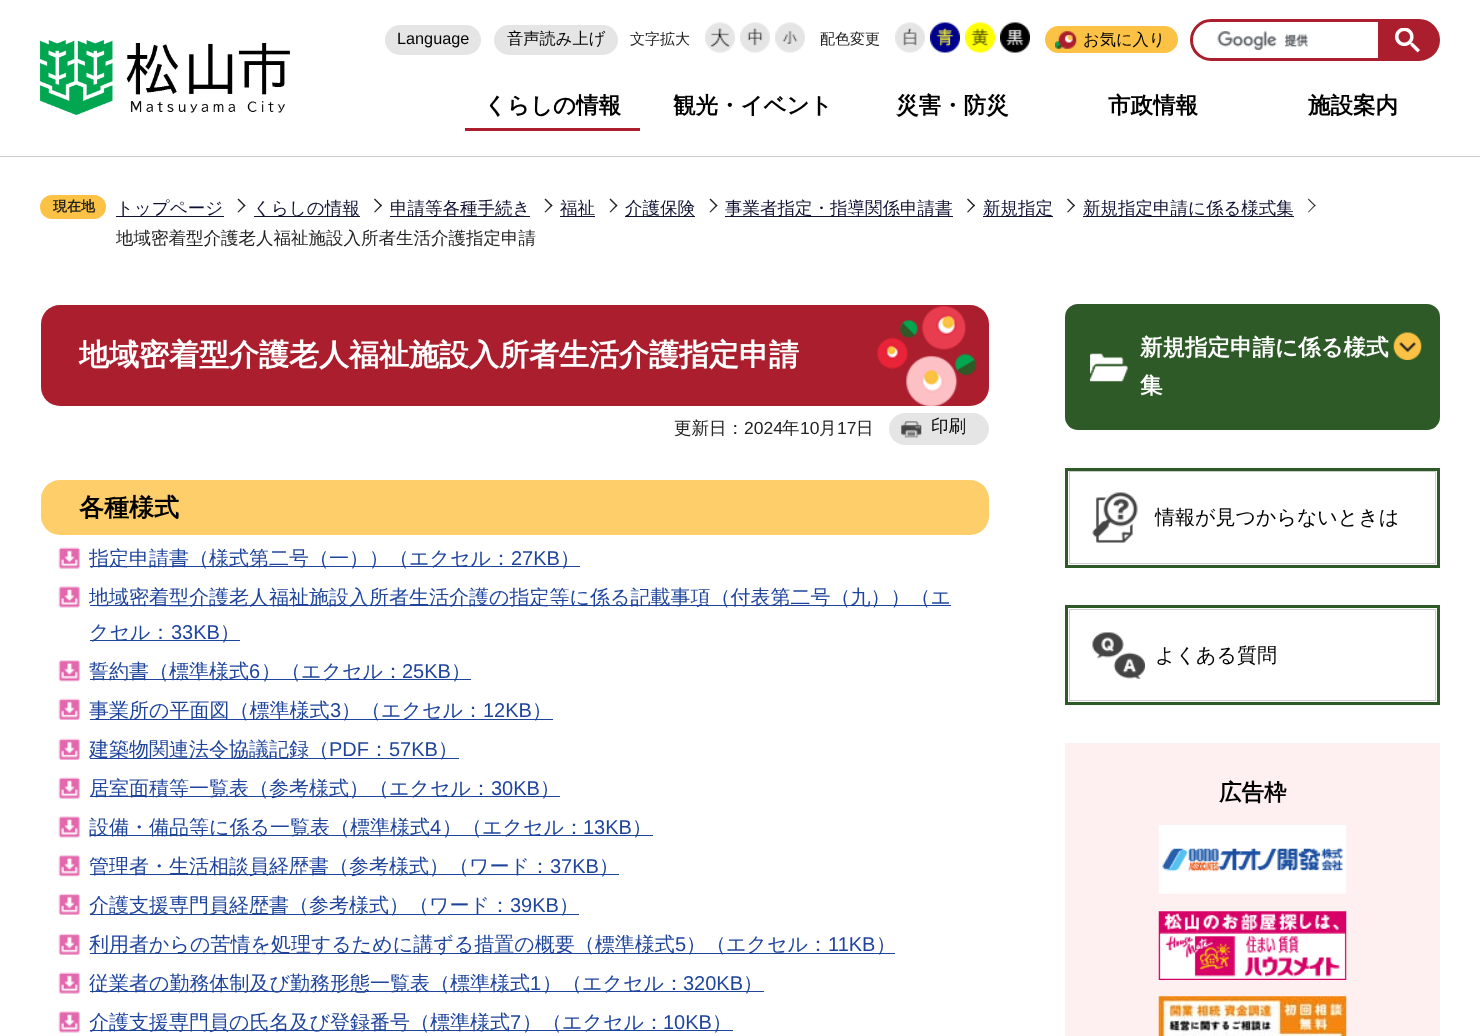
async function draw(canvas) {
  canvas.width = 1480
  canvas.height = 1036
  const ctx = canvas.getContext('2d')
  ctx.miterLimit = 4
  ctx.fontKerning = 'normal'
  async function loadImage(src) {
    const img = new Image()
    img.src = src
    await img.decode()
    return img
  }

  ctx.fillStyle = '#fff'
  ctx.fillRect(0, 0, 1480, 1036)
  ctx.fillStyle = '#ccc'
  ctx.fillRect(0, 156, 1480, 1)
  ctx.drawImage(await loadImage('image0.png'), 40, 40, 250, 75)
  ctx.fillStyle = '#e5e5e5'
  ctx.beginPath()
  ctx.roundRect(385, 25, 96, 30, 15)
  ctx.fill()
  ctx.font = '16.25px Liberation Sans'
  ctx.fillStyle = '#000'
  ctx.fillText('Language', 397, 44)
  ctx.fillStyle = '#e5e5e5'
  ctx.beginPath()
  ctx.roundRect(494, 25, 124, 30, 15)
  ctx.fill()
  ctx.font = '500 16.25px WenQuanYi Zen Hei'
  ctx.fillStyle = '#000'
  ctx.fillText('音声読み上げ', 507, 44)
  ctx.font = '500 15px WenQuanYi Zen Hei'
  ctx.fillStyle = '#222'
  ctx.fillText('文字拡大', 630, 44)
  ctx.drawImage(await loadImage('image1.png'), 705, 22, 30, 31)
  ctx.drawImage(await loadImage('image2.png'), 740, 22, 30, 31)
  ctx.drawImage(await loadImage('image3.png'), 775, 22, 30, 31)
  ctx.fillText('配色変更', 820, 44)
  ctx.drawImage(await loadImage('image4.png'), 895, 22, 30, 31)
  ctx.drawImage(await loadImage('image5.png'), 930, 22, 30, 31)
  ctx.drawImage(await loadImage('image6.png'), 965, 22, 30, 31)
  ctx.drawImage(await loadImage('image7.png'), 1000, 22, 30, 31)
  ctx.fillStyle = '#fcc245'
  ctx.beginPath()
  ctx.roundRect(1045, 26, 133, 27, 13.5)
  ctx.fill()
  ctx.drawImage(await loadImage('image8.png'), 1055, 31, 22, 18)
  ctx.font = '500 16.25px WenQuanYi Zen Hei'
  ctx.fillStyle = '#000'
  ctx.fillText('お気に入り', 1083, 45)
  ctx.beginPath()
  ctx.roundRect(1191.5, 20.5, 247, 39, 19.5)
  ctx.strokeStyle = '#aa1e2d'
  ctx.lineWidth = 3
  ctx.stroke()
  ctx.drawImage(await loadImage('image9.png'), 1217, 31, 92, 19)
  ctx.fillStyle = '#aa1e2d'
  ctx.beginPath()
  ctx.roundRect(1378, 21, 60, 38, [0, 19, 19, 0])
  ctx.fill()
  ctx.drawImage(await loadImage('image10.png'), 1395, 28, 25, 25)
  ctx.font = 'bold 22.5px WenQuanYi Zen Hei'
  ctx.fillStyle = '#000'
  ctx.fillText('くらしの情報', 484, 113)
  ctx.fillStyle = '#aa1e2d'
  ctx.fillRect(465, 128, 175, 3)
  ctx.fillStyle = '#000'
  ctx.fillText('観光・イベント', 673, 113)
  ctx.fillText('災害・防災', 896, 113)
  ctx.fillText('市政情報', 1108, 113)
  ctx.fillText('施設案内', 1308, 113)
  ctx.fillStyle = '#fcc245'
  ctx.beginPath()
  ctx.roundRect(40, 195, 66, 24, 12)
  ctx.fill()
  ctx.font = 'bold 14px WenQuanYi Zen Hei'
  ctx.fillStyle = '#222'
  ctx.fillText('現在地', 53, 211)
  ctx.fillStyle = '#113'
  ctx.fillRect(116, 216, 108, 1)
  ctx.font = '500 17.5px WenQuanYi Zen Hei'
  ctx.fillText('トップページ', 116, 214)
  ctx.fillStyle = '#222'
  ctx.beginPath()
  ctx.moveTo(238.5, 198.5)
  ctx.lineTo(245.5, 205.5)
  ctx.lineTo(244.5, 206.5)
  ctx.lineTo(237.5, 199.5)
  ctx.closePath()
  ctx.fill()
  ctx.beginPath()
  ctx.moveTo(244.5, 204.5)
  ctx.lineTo(245.5, 205.5)
  ctx.lineTo(238.5, 212.5)
  ctx.lineTo(237.5, 212)
  ctx.closePath()
  ctx.fill()
  ctx.fillStyle = '#113'
  ctx.fillRect(254, 216, 106, 1)
  ctx.fillText('くらしの情報', 253, 214)
  ctx.fillStyle = '#222'
  ctx.beginPath()
  ctx.moveTo(375, 198.5)
  ctx.lineTo(382, 205.5)
  ctx.lineTo(381, 206.5)
  ctx.lineTo(374, 199.5)
  ctx.closePath()
  ctx.fill()
  ctx.beginPath()
  ctx.moveTo(381, 204.5)
  ctx.lineTo(382, 205.5)
  ctx.lineTo(375, 212.5)
  ctx.lineTo(374, 212)
  ctx.closePath()
  ctx.fill()
  ctx.fillStyle = '#113'
  ctx.fillRect(390, 216, 140, 1)
  ctx.fillText('申請等各種手続き', 390, 214)
  ctx.fillStyle = '#222'
  ctx.beginPath()
  ctx.moveTo(545.5, 198.5)
  ctx.lineTo(552.5, 205.5)
  ctx.lineTo(551.5, 206.5)
  ctx.lineTo(544.5, 199.5)
  ctx.closePath()
  ctx.fill()
  ctx.beginPath()
  ctx.moveTo(551.5, 204.5)
  ctx.lineTo(552.5, 205.5)
  ctx.lineTo(545.5, 212.5)
  ctx.lineTo(544.5, 212)
  ctx.closePath()
  ctx.fill()
  ctx.fillStyle = '#113'
  ctx.fillRect(560, 216, 35, 1)
  ctx.fillText('福祉', 560, 214)
  ctx.fillStyle = '#222'
  ctx.beginPath()
  ctx.moveTo(610.5, 198.5)
  ctx.lineTo(617.5, 205.5)
  ctx.lineTo(616.5, 206.5)
  ctx.lineTo(609.5, 199.5)
  ctx.closePath()
  ctx.fill()
  ctx.beginPath()
  ctx.moveTo(616.5, 204.5)
  ctx.lineTo(617.5, 205.5)
  ctx.lineTo(610.5, 212.5)
  ctx.lineTo(609.5, 212)
  ctx.closePath()
  ctx.fill()
  ctx.fillStyle = '#113'
  ctx.fillRect(625, 216, 70, 1)
  ctx.fillText('介護保険', 625, 214)
  ctx.fillStyle = '#222'
  ctx.beginPath()
  ctx.moveTo(710.5, 198.5)
  ctx.lineTo(717.5, 205.5)
  ctx.lineTo(716.5, 206.5)
  ctx.lineTo(709.5, 199.5)
  ctx.closePath()
  ctx.fill()
  ctx.beginPath()
  ctx.moveTo(716.5, 204.5)
  ctx.lineTo(717.5, 205.5)
  ctx.lineTo(710.5, 212.5)
  ctx.lineTo(709.5, 212)
  ctx.closePath()
  ctx.fill()
  ctx.fillStyle = '#113'
  ctx.fillRect(725, 216, 228, 1)
  ctx.fillText('事業者指定・指導関係申請書', 725, 214)
  ctx.fillStyle = '#222'
  ctx.beginPath()
  ctx.moveTo(968, 198.5)
  ctx.lineTo(975, 205.5)
  ctx.lineTo(974, 206.5)
  ctx.lineTo(967, 199.5)
  ctx.closePath()
  ctx.fill()
  ctx.beginPath()
  ctx.moveTo(974, 204.5)
  ctx.lineTo(975, 205.5)
  ctx.lineTo(968, 212.5)
  ctx.lineTo(967, 212)
  ctx.closePath()
  ctx.fill()
  ctx.fillStyle = '#113'
  ctx.fillRect(983, 216, 70, 1)
  ctx.fillText('新規指定', 983, 214)
  ctx.fillStyle = '#222'
  ctx.beginPath()
  ctx.moveTo(1068, 198.5)
  ctx.lineTo(1075, 205.5)
  ctx.lineTo(1074, 206.5)
  ctx.lineTo(1067, 199.5)
  ctx.closePath()
  ctx.fill()
  ctx.beginPath()
  ctx.moveTo(1074, 204.5)
  ctx.lineTo(1075, 205.5)
  ctx.lineTo(1068, 212.5)
  ctx.lineTo(1067, 212)
  ctx.closePath()
  ctx.fill()
  ctx.fillStyle = '#113'
  ctx.fillRect(1083, 216, 211, 1)
  ctx.fillText('新規指定申請に係る様式集', 1083, 214)
  ctx.fillStyle = '#222'
  ctx.beginPath()
  ctx.moveTo(1308.5, 198.5)
  ctx.lineTo(1315.5, 205.5)
  ctx.lineTo(1315, 206.5)
  ctx.lineTo(1308, 199.5)
  ctx.closePath()
  ctx.fill()
  ctx.beginPath()
  ctx.moveTo(1315, 204.5)
  ctx.lineTo(1315.5, 205.5)
  ctx.lineTo(1308.5, 212.5)
  ctx.lineTo(1308, 212)
  ctx.closePath()
  ctx.fill()
  ctx.fillText('地域密着型介護老人福祉施設入所者生活介護指定申請', 116, 244)
  ctx.fillStyle = '#aa1e2d'
  ctx.beginPath()
  ctx.roundRect(41, 305, 948, 101, 19)
  ctx.fill()
  ctx.drawImage(await loadImage('image11.png'), 877, 306, 100, 100)
  ctx.font = 'bold 30px WenQuanYi Zen Hei'
  ctx.fillStyle = '#fff'
  ctx.fillText('地域密着型介護老人福祉施設入所者生活介護指定申請', 79, 365)
  ctx.font = '500 17.5px WenQuanYi Zen Hei'
  ctx.fillStyle = '#222'
  ctx.fillText('更新日：', 674, 434)
  ctx.font = '17.5px Liberation Sans'
  ctx.fillText('2024', 744, 434)
  ctx.font = '500 17.5px WenQuanYi Zen Hei'
  ctx.fillText('年', 782, 434)
  ctx.font = '17.5px Liberation Sans'
  ctx.fillText('10', 800, 434)
  ctx.font = '500 17.5px WenQuanYi Zen Hei'
  ctx.fillText('月', 819, 434)
  ctx.font = '17.5px Liberation Sans'
  ctx.fillText('17', 837, 434)
  ctx.font = '500 17.5px WenQuanYi Zen Hei'
  ctx.fillText('日', 856, 434)
  ctx.fillStyle = '#e5e5e5'
  ctx.beginPath()
  ctx.roundRect(889, 413, 100, 32, 16)
  ctx.fill()
  ctx.drawImage(await loadImage('image12.png'), 901, 421, 21, 17)
  ctx.fillStyle = '#000'
  ctx.fillText('印刷', 931, 432)
  ctx.fillStyle = '#fdce6a'
  ctx.beginPath()
  ctx.roundRect(41, 480, 948, 55, 19)
  ctx.fill()
  ctx.font = 'bold 25px WenQuanYi Zen Hei'
  ctx.fillStyle = '#000'
  ctx.fillText('各種様式', 79, 516)
  ctx.drawImage(await loadImage('image13.png'), 58, 547, 22, 22)
  ctx.fillStyle = '#1e449c'
  ctx.fillRect(90, 566, 490, 1)
  ctx.font = '500 20px WenQuanYi Zen Hei'
  ctx.fillText('指定申請書（様式第二号（一））（エクセル：', 89, 565)
  ctx.font = '20px Liberation Sans'
  ctx.fillText('27KB', 511, 565)
  ctx.font = '500 20px WenQuanYi Zen Hei'
  ctx.fillText('）', 560, 565)
  ctx.drawImage(await loadImage('image14.png'), 58, 586, 22, 22)
  ctx.fillRect(90, 605, 861, 1)
  ctx.fillText('地域密着型介護老人福祉施設入所者生活介護の指定等に係る記載事項（付表第二号（九））（エ', 89, 604)
  ctx.fillRect(90, 640, 150, 1)
  ctx.fillText('クセル：', 89, 639)
  ctx.font = '20px Liberation Sans'
  ctx.fillText('33KB', 171, 639)
  ctx.font = '500 20px WenQuanYi Zen Hei'
  ctx.fillText('）', 220, 639)
  ctx.drawImage(await loadImage('image15.png'), 58, 660, 22, 22)
  ctx.fillRect(90, 679, 381, 1)
  ctx.fillText('誓約書（標準様式', 89, 678)
  ctx.font = '20px Liberation Sans'
  ctx.fillText('6', 249, 678)
  ctx.font = '500 20px WenQuanYi Zen Hei'
  ctx.fillText('）（エクセル：', 261, 678)
  ctx.font = '20px Liberation Sans'
  ctx.fillText('25KB', 402, 678)
  ctx.font = '500 20px WenQuanYi Zen Hei'
  ctx.fillText('）', 451, 678)
  ctx.drawImage(await loadImage('image16.png'), 58, 698, 22, 22)
  ctx.fillRect(90, 719, 463, 1)
  ctx.fillText('事業所の平面図（標準様式', 89, 717)
  ctx.font = '20px Liberation Sans'
  ctx.fillText('3', 330, 717)
  ctx.font = '500 20px WenQuanYi Zen Hei'
  ctx.fillText('）（エクセル：', 341, 717)
  ctx.font = '20px Liberation Sans'
  ctx.fillText('12KB', 483, 717)
  ctx.font = '500 20px WenQuanYi Zen Hei'
  ctx.fillText('）', 532, 717)
  ctx.drawImage(await loadImage('image16.png'), 58, 738, 22, 22)
  ctx.fillRect(90, 758, 369, 1)
  ctx.fillText('建築物関連法令協議記録（', 89, 756)
  ctx.font = '20px Liberation Sans'
  ctx.fillText('PDF', 329, 756)
  ctx.font = '500 20px WenQuanYi Zen Hei'
  ctx.fillText('：', 369, 756)
  ctx.font = '20px Liberation Sans'
  ctx.fillText('57KB', 389, 756)
  ctx.font = '500 20px WenQuanYi Zen Hei'
  ctx.fillText('）', 438, 756)
  ctx.drawImage(await loadImage('image17.png'), 58, 777, 22, 22)
  ctx.fillRect(90, 796, 470, 1)
  ctx.fillText('居室面積等一覧表（参考様式）（エクセル：', 89, 795)
  ctx.font = '20px Liberation Sans'
  ctx.fillText('30KB', 491, 795)
  ctx.font = '500 20px WenQuanYi Zen Hei'
  ctx.fillText('）', 540, 795)
  ctx.drawImage(await loadImage('image18.png'), 58, 816, 22, 22)
  ctx.fillRect(90, 835, 563, 1)
  ctx.fillText('設備・備品等に係る一覧表（標準様式', 89, 834)
  ctx.font = '20px Liberation Sans'
  ctx.fillText('4', 430, 834)
  ctx.font = '500 20px WenQuanYi Zen Hei'
  ctx.fillText('）（エクセル：', 442, 834)
  ctx.font = '20px Liberation Sans'
  ctx.fillText('13KB', 583, 834)
  ctx.font = '500 20px WenQuanYi Zen Hei'
  ctx.fillText('）', 632, 834)
  ctx.drawImage(await loadImage('image15.png'), 58, 855, 22, 22)
  ctx.fillRect(90, 874, 529, 1)
  ctx.fillText('管理者・生活相談員経歴書（参考様式）（ワード：', 89, 873)
  ctx.font = '20px Liberation Sans'
  ctx.fillText('37KB', 550, 873)
  ctx.font = '500 20px WenQuanYi Zen Hei'
  ctx.fillText('）', 599, 873)
  ctx.drawImage(await loadImage('image16.png'), 58, 893, 22, 22)
  ctx.fillRect(90, 914, 489, 1)
  ctx.fillText('介護支援専門員経歴書（参考様式）（ワード：', 89, 912)
  ctx.font = '20px Liberation Sans'
  ctx.fillText('39KB', 510, 912)
  ctx.font = '500 20px WenQuanYi Zen Hei'
  ctx.fillText('）', 559, 912)
  ctx.drawImage(await loadImage('image16.png'), 58, 933, 22, 22)
  ctx.fillRect(90, 953, 805, 1)
  ctx.fillText('利用者からの苦情を処理するために講ずる措置の概要（標準様式', 89, 951)
  ctx.font = '20px Liberation Sans'
  ctx.fillText('5', 675, 951)
  ctx.font = '500 20px WenQuanYi Zen Hei'
  ctx.fillText('）（エクセル：', 686, 951)
  ctx.font = '20px Liberation Sans'
  ctx.fillText('11KB', 828, 951)
  ctx.font = '500 20px WenQuanYi Zen Hei'
  ctx.fillText('）', 876, 951)
  ctx.drawImage(await loadImage('image13.png'), 58, 972, 22, 22)
  ctx.fillRect(90, 991, 674, 1)
  ctx.fillText('従業者の勤務体制及び勤務形態一覧表（標準様式', 89, 990)
  ctx.font = '20px Liberation Sans'
  ctx.fillText('1', 530, 990)
  ctx.font = '500 20px WenQuanYi Zen Hei'
  ctx.fillText('）（エクセル：', 542, 990)
  ctx.font = '20px Liberation Sans'
  ctx.fillText('320KB', 683, 990)
  ctx.font = '500 20px WenQuanYi Zen Hei'
  ctx.fillText('）', 743, 990)
  ctx.drawImage(await loadImage('image18.png'), 58, 1011, 22, 22)
  ctx.fillRect(90, 1030, 643, 1)
  ctx.fillText('介護支援専門員の氏名及び登録番号（標準様式', 89, 1029)
  ctx.font = '20px Liberation Sans'
  ctx.fillText('7', 510, 1029)
  ctx.font = '500 20px WenQuanYi Zen Hei'
  ctx.fillText('）（エクセル：', 522, 1029)
  ctx.font = '20px Liberation Sans'
  ctx.fillText('10KB', 663, 1029)
  ctx.font = '500 20px WenQuanYi Zen Hei'
  ctx.fillText('）', 712, 1029)
  ctx.fillStyle = '#2d5a26'
  ctx.beginPath()
  ctx.roundRect(1065, 304, 375, 126, 13)
  ctx.fill()
  ctx.drawImage(await loadImage('image19.png'), 1090, 353, 38, 29)
  ctx.font = 'bold 22.5px WenQuanYi Zen Hei'
  ctx.fillStyle = '#fff'
  ctx.fillText('新規指定申請に係る様式', 1140, 355)
  ctx.fillText('集', 1140, 393)
  ctx.drawImage(await loadImage('image20.png'), 1393, 332, 29, 28)
  ctx.drawImage(await loadImage('image21.png'), 1092, 492, 46, 51)
  ctx.strokeStyle = '#2d5a26'
  ctx.strokeRect(1066.5, 469.5, 372, 97)
  ctx.strokeStyle = '#ccc'
  ctx.lineWidth = 1
  ctx.strokeRect(1069.5, 471.5, 366, 92)
  ctx.font = '500 20px WenQuanYi Zen Hei'
  ctx.fillStyle = '#000'
  ctx.fillText('情報が見つからないときは', 1155, 524)
  ctx.drawImage(await loadImage('image22.png'), 1092, 632, 53, 47)
  ctx.strokeStyle = '#2d5a26'
  ctx.lineWidth = 3
  ctx.strokeRect(1066.5, 606.5, 372, 97)
  ctx.strokeStyle = '#ccc'
  ctx.lineWidth = 1
  ctx.strokeRect(1069.5, 609.5, 366, 91)
  ctx.fillText('よくある質問', 1155, 662)
  ctx.fillStyle = '#feeff0'
  ctx.fillRect(1065, 743, 375, 293)
  ctx.font = 'bold 22.5px WenQuanYi Zen Hei'
  ctx.fillStyle = '#000'
  ctx.fillText('広告枠', 1219, 800)
  ctx.drawImage(await loadImage('image23.png'), 1158, 825, 189, 69)
  ctx.drawImage(await loadImage('image24.png'), 1158, 911, 189, 69)
  ctx.drawImage(await loadImage('image25.png'), 1158, 996, 189, 40)
}

draw(document.querySelector('canvas'))
